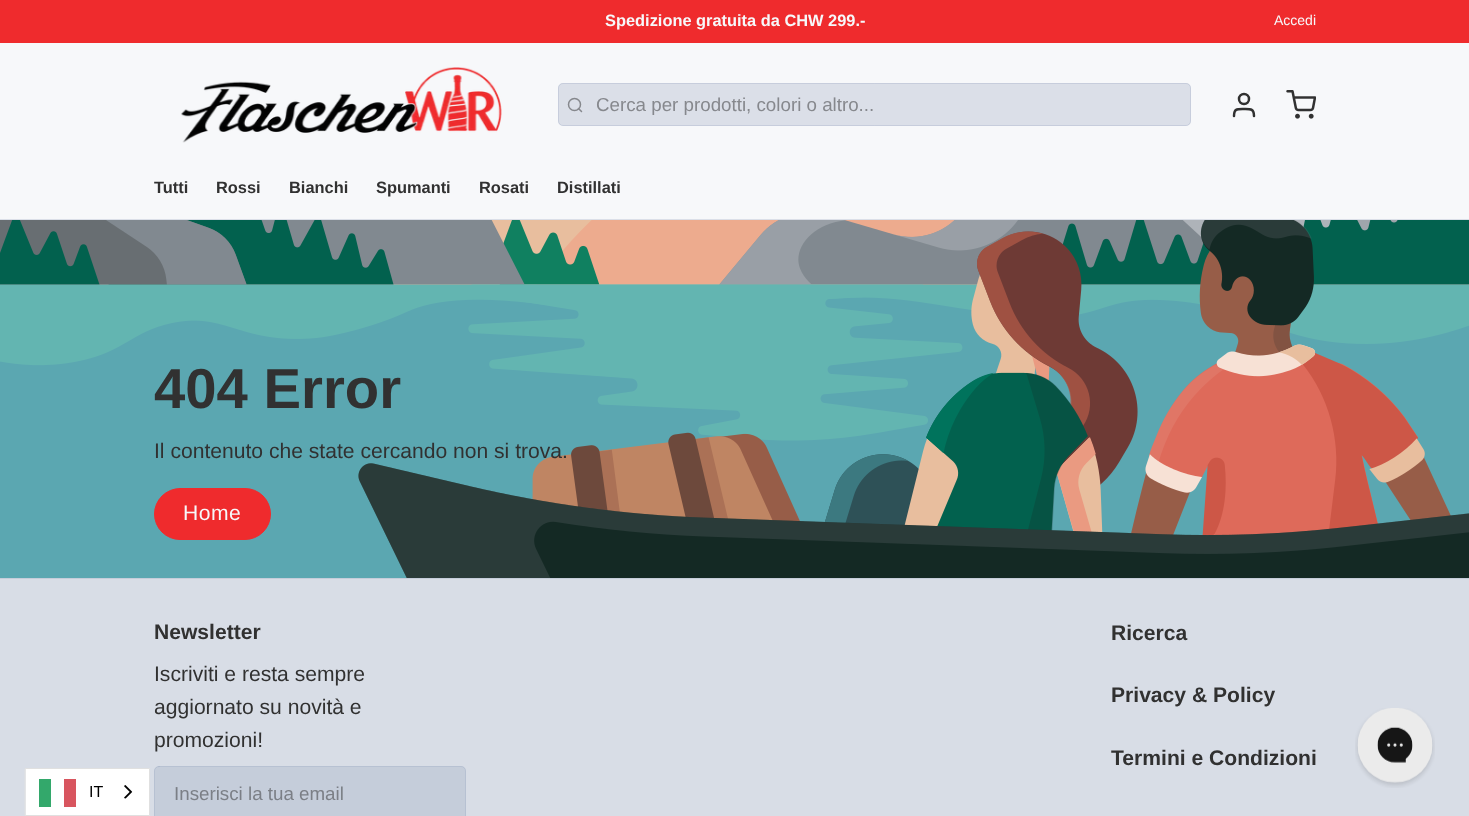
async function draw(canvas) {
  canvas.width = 1469
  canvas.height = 816
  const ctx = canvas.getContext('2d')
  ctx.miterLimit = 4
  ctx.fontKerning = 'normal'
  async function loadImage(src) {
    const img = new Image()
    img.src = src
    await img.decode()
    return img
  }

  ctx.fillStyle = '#fff'
  ctx.fillRect(0, 0, 1469, 816)
  ctx.fillStyle = '#ef2b2d'
  ctx.fillRect(0, 0, 1469, 43)
  ctx.font = 'bold 16.4px Liberation Sans'
  ctx.fillStyle = '#f7f8fa'
  ctx.fillText('Spedizione gratuita da CHW 299.-', 605, 26)
  ctx.font = '14px Liberation Sans'
  ctx.fillText('Accedi', 1274, 25)
  ctx.fillRect(0, 43, 1469, 176)
  ctx.fillStyle = '#dbdfe8'
  ctx.fillRect(0, 219, 1469, 1)
  ctx.drawImage(await loadImage('image0.png'), 181, 67, 321, 76)
  ctx.beginPath()
  ctx.roundRect(558, 83, 633, 43, 5)
  ctx.fill()
  ctx.beginPath()
  ctx.roundRect(558.5, 83.5, 632, 42, 4.5)
  ctx.strokeStyle = '#99a6bf4d'
  ctx.stroke()
  ctx.beginPath()
  ctx.arc(574.5, 104.5, 6, 0, 2 * Math.PI)
  ctx.strokeStyle = '#86888d'
  ctx.lineWidth = 1.5
  ctx.stroke()
  ctx.beginPath()
  ctx.moveTo(581.5, 111.5)
  ctx.lineTo(578.5, 108.5)
  ctx.lineCap = 'round'
  ctx.lineJoin = 'round'
  ctx.stroke()
  ctx.font = '18.75px Liberation Sans'
  ctx.fillStyle = '#86888d'
  ctx.fillText('Cerca per prodotti, colori o altro...', 596, 111)
  ctx.beginPath()
  ctx.moveTo(1254, 116)
  ctx.bezierCurveTo(1254, 108.5, 1250.5, 109, 1244, 109)
  ctx.bezierCurveTo(1237, 109, 1234, 108.5, 1234, 116)
  ctx.strokeStyle = '#313131'
  ctx.lineWidth = 2.5
  ctx.stroke()
  ctx.beginPath()
  ctx.arc(1244, 99, 5, 0, 2 * Math.PI)
  ctx.stroke()
  ctx.drawImage(await loadImage('image1.png'), 1286, 90, 30, 29)
  ctx.font = 'bold 16.4px Liberation Sans'
  ctx.fillStyle = '#313131'
  ctx.fillText('Tutti', 154, 193)
  ctx.fillText('Rossi', 216, 193)
  ctx.fillText('Bianchi', 289, 193)
  ctx.fillText('Spumanti', 376, 193)
  ctx.fillText('Rosati', 479, 193)
  ctx.fillText('Distillati', 557, 193)
  ctx.drawImage(await loadImage('image2.png'), 0, 220, 1469, 358)
  ctx.font = 'bold 56.25px Liberation Sans'
  ctx.fillText('404 Error', 154, 408)
  ctx.font = '21.1px Liberation Sans'
  ctx.fillText('Il contenuto che state cercando non si trova.', 154, 458)
  ctx.fillStyle = '#ef2b2d'
  ctx.beginPath()
  ctx.roundRect(154.5, 488.5, 116, 51, 25.5)
  ctx.fill()
  ctx.strokeStyle = '#ef2b2d'
  ctx.lineWidth = 1
  ctx.lineJoin = 'miter'
  ctx.stroke()
  ctx.letterSpacing = '0.5px'
  ctx.fillStyle = '#f7f8fa'
  ctx.fillText('Home', 183, 520)
  ctx.fillStyle = '#d8dde6'
  ctx.fillRect(0, 579, 1469, 237)
  ctx.fillStyle = '#c5cdda'
  ctx.fillRect(0, 578, 1469, 1)
  ctx.letterSpacing = '0px'
  ctx.font = 'bold 21.1px Liberation Sans'
  ctx.fillStyle = '#313131'
  ctx.fillText('Newsletter', 154, 639)
  ctx.font = '21.1px Liberation Sans'
  ctx.fillText('Iscriviti e resta sempre', 154, 681)
  ctx.fillText('aggiornato su novità e', 154, 714)
  ctx.fillText('promozioni!', 154, 747)
  ctx.fillStyle = '#c5cdda'
  ctx.beginPath()
  ctx.roundRect(154, 766, 312, 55, 5)
  ctx.fill()
  ctx.beginPath()
  ctx.roundRect(154.5, 766.5, 311, 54, 4.5)
  ctx.strokeStyle = '#99a6bf4d'
  ctx.stroke()
  ctx.font = '18.75px Liberation Sans'
  ctx.fillStyle = '#7b7f86'
  ctx.fillText('Inserisci la tua email', 174, 800)
  ctx.font = 'bold 21.1px Liberation Sans'
  ctx.fillStyle = '#313131'
  ctx.fillText('Ricerca', 1111, 640)
  ctx.fillText('Privacy & Policy', 1111, 702)
  ctx.fillText('Termini e Condizioni', 1111, 765)
  ctx.drawImage(await loadImage('image3.png'), 1355, 708, 80, 80)
  ctx.fillStyle = '#fff'
  ctx.beginPath()
  ctx.rect(25.5, 768.5, 124, 47)
  ctx.fill()
  ctx.strokeStyle = '#e0e0e0'
  ctx.stroke()
  ctx.fillStyle = '#33a86b'
  ctx.fillRect(39, 779, 12, 28)
  ctx.fillStyle = '#d8555f'
  ctx.fillRect(64, 779, 12, 28)
  ctx.font = '16px Liberation Sans'
  ctx.fillStyle = '#000'
  ctx.fillText('IT', 89, 797)
  ctx.drawImage(await loadImage('image4.png'), 124, 785, 9, 14)
}

draw(document.querySelector('canvas'))
